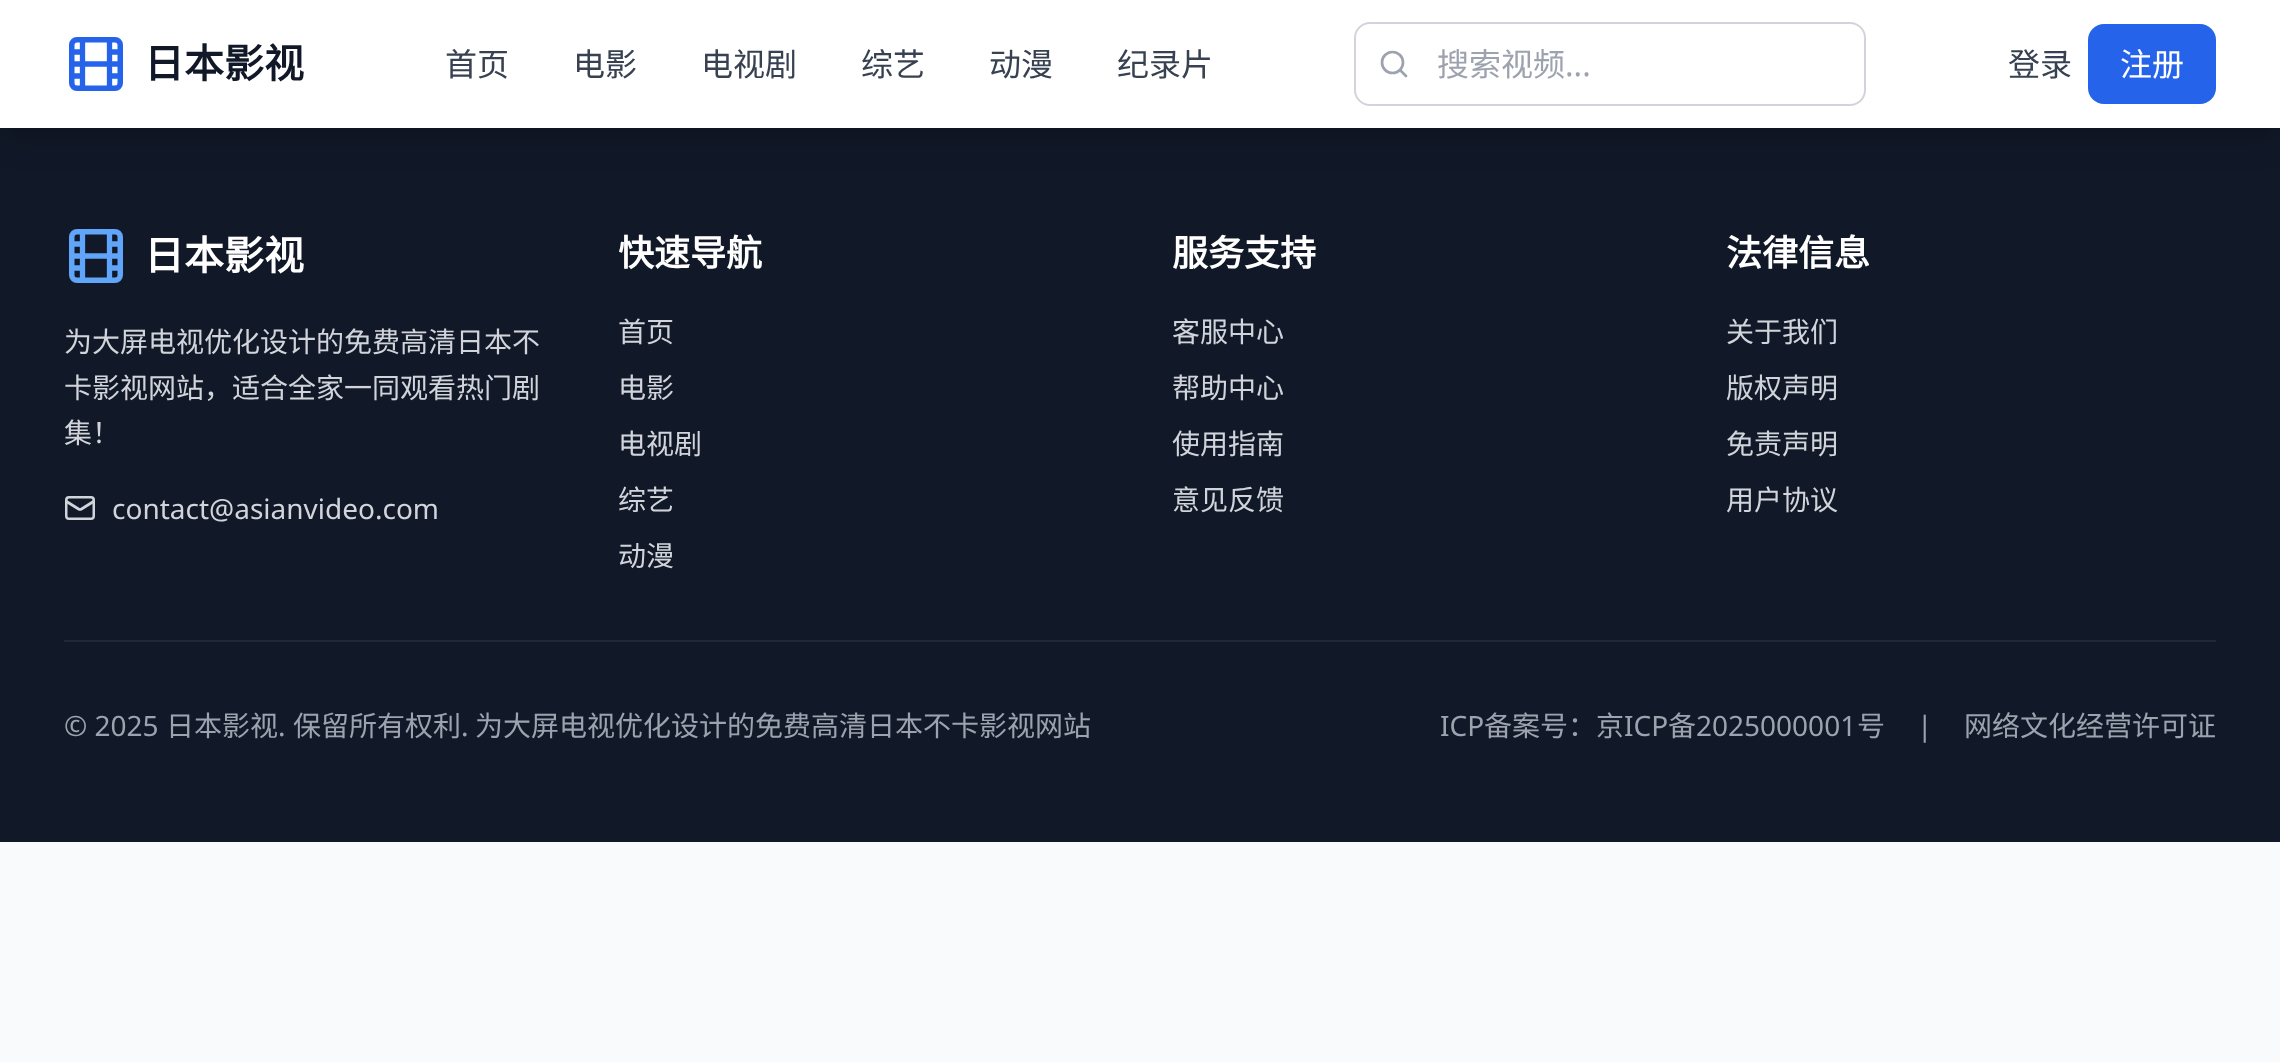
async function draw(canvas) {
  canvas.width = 2280
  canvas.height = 1062
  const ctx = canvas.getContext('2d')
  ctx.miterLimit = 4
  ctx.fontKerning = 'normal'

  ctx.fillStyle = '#f9fafb'
  ctx.fillRect(0, 0, 2280, 1062)
  ctx.fillStyle = '#111827'
  ctx.fillRect(0, 128, 2280, 714)
  ctx.fillStyle = '#0000001a'
  ctx.filter = 'blur(6px)'
  ctx.beginPath()
  ctx.rect(8, 16, 2264, 112)
  ctx.fill()
  ctx.filter = 'none'
  ctx.filter = 'blur(15px)'
  ctx.beginPath()
  ctx.rect(6, 26, 2268, 116)
  ctx.fill()
  ctx.filter = 'none'
  ctx.fillStyle = '#fff'
  ctx.fillRect(0, 0, 2280, 128)
  ctx.beginPath()
  ctx.roundRect(71.75, 39.75, 48.5, 48.5, 5.25)
  ctx.strokeStyle = '#2563eb'
  ctx.lineWidth = 5.5
  ctx.stroke()
  ctx.beginPath()
  ctx.moveTo(82.5, 40)
  ctx.lineTo(82.5, 88)
  ctx.moveTo(72, 52)
  ctx.lineTo(82.5, 52)
  ctx.moveTo(72, 64)
  ctx.lineTo(120, 64)
  ctx.moveTo(72, 76)
  ctx.lineTo(82.5, 76)
  ctx.moveTo(109.5, 40)
  ctx.lineTo(109.5, 88)
  ctx.moveTo(109.5, 52)
  ctx.lineTo(120, 52)
  ctx.moveTo(109.5, 76)
  ctx.lineTo(120, 76)
  ctx.lineWidth = 5.3
  ctx.lineCap = 'round'
  ctx.lineJoin = 'round'
  ctx.stroke()
  ctx.font = 'bold 40px Noto Sans CJK SC'
  ctx.fillStyle = '#111827'
  ctx.fillText('日本影视', 144, 78)
  ctx.font = '32px Noto Sans CJK SC'
  ctx.fillStyle = '#374151'
  ctx.fillText('首页', 445, 76)
  ctx.fillText('电影', 573, 76)
  ctx.fillText('电视剧', 701, 76)
  ctx.fillText('综艺', 861, 76)
  ctx.fillText('动漫', 989, 76)
  ctx.fillText('纪录片', 1117, 76)
  ctx.beginPath()
  ctx.roundRect(1355, 23, 510, 82, 15)
  ctx.strokeStyle = '#d1d5db'
  ctx.lineWidth = 2
  ctx.lineJoin = 'miter'
  ctx.stroke()
  ctx.beginPath()
  ctx.arc(1392.5, 62.5, 10.5, 0, 2 * Math.PI)
  ctx.strokeStyle = '#9ca3af'
  ctx.lineWidth = 2.7
  ctx.stroke()
  ctx.beginPath()
  ctx.moveTo(1406, 76)
  ctx.lineTo(1400.5, 70.5)
  ctx.lineJoin = 'round'
  ctx.stroke()
  ctx.fillStyle = '#9ca3af'
  ctx.fillText('搜索视频', 1437, 76)
  ctx.font = '32px Noto Sans'
  ctx.fillText('...', 1565, 76)
  ctx.font = '32px Noto Sans CJK SC'
  ctx.fillStyle = '#374151'
  ctx.fillText('登录', 2008, 76)
  ctx.fillStyle = '#2563eb'
  ctx.beginPath()
  ctx.roundRect(2088, 24, 128, 80, 16)
  ctx.fill()
  ctx.fillStyle = '#fff'
  ctx.fillText('注册', 2120, 76)
  ctx.beginPath()
  ctx.roundRect(71.75, 231.75, 48.5, 48.5, 5.25)
  ctx.strokeStyle = '#60a5fa'
  ctx.lineWidth = 5.5
  ctx.lineJoin = 'miter'
  ctx.stroke()
  ctx.beginPath()
  ctx.moveTo(82.5, 232)
  ctx.lineTo(82.5, 280)
  ctx.moveTo(72, 244)
  ctx.lineTo(82.5, 244)
  ctx.moveTo(72, 256)
  ctx.lineTo(120, 256)
  ctx.moveTo(72, 268)
  ctx.lineTo(82.5, 268)
  ctx.moveTo(109.5, 232)
  ctx.lineTo(109.5, 280)
  ctx.moveTo(109.5, 244)
  ctx.lineTo(120, 244)
  ctx.moveTo(109.5, 268)
  ctx.lineTo(120, 268)
  ctx.lineWidth = 5.3
  ctx.lineJoin = 'round'
  ctx.stroke()
  ctx.font = 'bold 40px Noto Sans CJK SC'
  ctx.fillText('日本影视', 144, 270)
  ctx.font = '28px Noto Sans CJK SC'
  ctx.fillStyle = '#d1d5db'
  ctx.fillText('为大屏电视优化设计的免费高清日本不', 64, 352)
  ctx.fillText('卡影视网站，适合全家一同观看热门剧', 64, 398)
  ctx.fillText('集！', 64, 443)
  ctx.beginPath()
  ctx.roundRect(66.25, 497.25, 27.5, 21.5, 2.75)
  ctx.strokeStyle = '#d1d5db'
  ctx.lineWidth = 2.5
  ctx.lineJoin = 'miter'
  ctx.stroke()
  ctx.beginPath()
  ctx.moveTo(93.5, 501.5)
  ctx.lineTo(81.5, 509)
  ctx.bezierCurveTo(80.5, 509.5, 79.5, 509.5, 78.5, 509)
  ctx.lineTo(66.5, 501.5)
  ctx.lineWidth = 2.7
  ctx.lineJoin = 'round'
  ctx.stroke()
  ctx.font = '28px Noto Sans'
  ctx.fillText('contact@asianvideo.com', 112, 519)
  ctx.font = 'bold 36px Noto Sans CJK SC'
  ctx.fillStyle = '#fff'
  ctx.fillText('快速导航', 618, 266)
  ctx.font = '28px Noto Sans CJK SC'
  ctx.fillStyle = '#d1d5db'
  ctx.fillText('首页', 618, 342)
  ctx.fillText('电影', 618, 398)
  ctx.fillText('电视剧', 618, 454)
  ctx.fillText('综艺', 618, 510)
  ctx.fillText('动漫', 618, 566)
  ctx.font = 'bold 36px Noto Sans CJK SC'
  ctx.fillStyle = '#fff'
  ctx.fillText('服务支持', 1172, 266)
  ctx.font = '28px Noto Sans CJK SC'
  ctx.fillStyle = '#d1d5db'
  ctx.fillText('客服中心', 1172, 342)
  ctx.fillText('帮助中心', 1172, 398)
  ctx.fillText('使用指南', 1172, 454)
  ctx.fillText('意见反馈', 1172, 510)
  ctx.font = 'bold 36px Noto Sans CJK SC'
  ctx.fillStyle = '#fff'
  ctx.fillText('法律信息', 1726, 266)
  ctx.font = '28px Noto Sans CJK SC'
  ctx.fillStyle = '#d1d5db'
  ctx.fillText('关于我们', 1726, 342)
  ctx.fillText('版权声明', 1726, 398)
  ctx.fillText('免责声明', 1726, 454)
  ctx.fillText('用户协议', 1726, 510)
  ctx.fillStyle = '#1f2937'
  ctx.fillRect(64, 640, 2152, 2)
  ctx.font = '28px Noto Sans'
  ctx.fillStyle = '#9ca3af'
  ctx.fillText('© 2025', 64, 736)
  ctx.font = '28px Noto Sans CJK SC'
  ctx.fillText('日本影视', 166, 736)
  ctx.font = '28px Noto Sans'
  ctx.fillText('.', 278, 736)
  ctx.font = '28px Noto Sans CJK SC'
  ctx.fillText('保留所有权利', 293, 736)
  ctx.font = '28px Noto Sans'
  ctx.fillText('.', 461, 736)
  ctx.font = '28px Noto Sans CJK SC'
  ctx.fillText('为大屏电视优化设计的免费高清日本不卡影视网站', 475, 736)
  ctx.font = '28px Noto Sans'
  ctx.fillText('ICP', 1440, 736)
  ctx.font = '28px Noto Sans CJK SC'
  ctx.fillText('备案号：京', 1484, 736)
  ctx.font = '28px Noto Sans'
  ctx.fillText('ICP', 1624, 736)
  ctx.font = '28px Noto Sans CJK SC'
  ctx.fillText('备', 1668, 736)
  ctx.font = '28px Noto Sans'
  ctx.fillText('2025000001', 1696, 736)
  ctx.font = '28px Noto Sans CJK SC'
  ctx.fillText('号', 1857, 736)
  ctx.font = '28px Noto Sans'
  ctx.fillText('|', 1917, 736)
  ctx.font = '28px Noto Sans CJK SC'
  ctx.fillText('网络文化经营许可证', 1964, 736)
}

draw(document.querySelector('canvas'))
